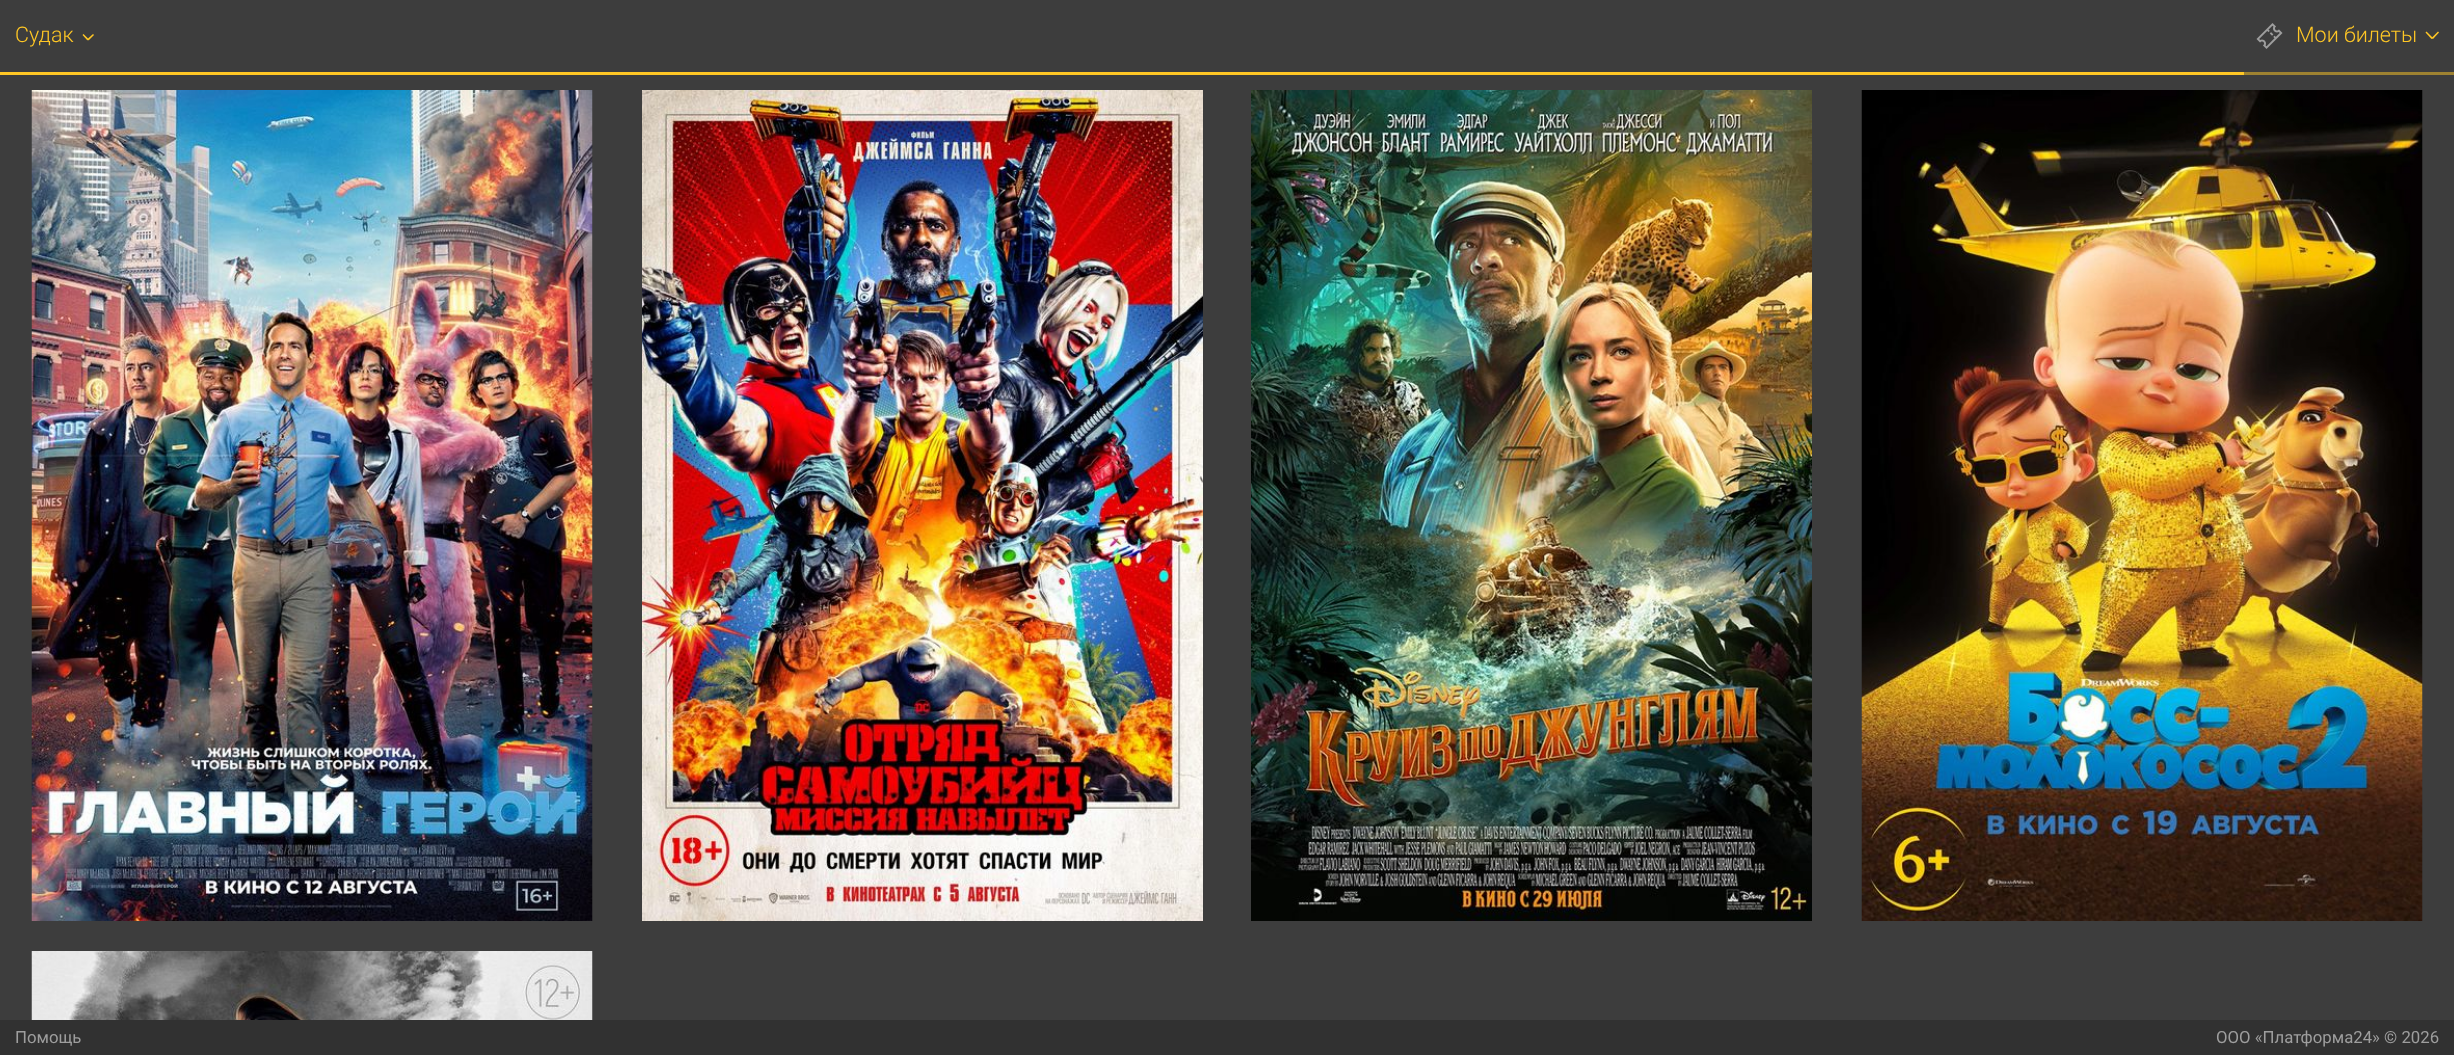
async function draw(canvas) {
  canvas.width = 2454
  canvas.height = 1055
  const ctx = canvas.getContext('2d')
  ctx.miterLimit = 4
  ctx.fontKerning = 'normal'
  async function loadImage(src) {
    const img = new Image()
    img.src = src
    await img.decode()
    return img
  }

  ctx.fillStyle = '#3d3d3d'
  ctx.fillRect(0, 0, 2454, 1055)
  ctx.fillStyle = '#ffc725'
  ctx.fillRect(0, 72, 2244, 3)
  ctx.font = '300 21.5px Roboto'
  ctx.fillText('Судак', 15, 42)
  ctx.beginPath()
  ctx.moveTo(82.5, 35)
  ctx.lineTo(83.5, 34)
  ctx.lineTo(88.5, 39)
  ctx.lineTo(87.5, 40.5)
  ctx.closePath()
  ctx.fill()
  ctx.beginPath()
  ctx.moveTo(93, 34)
  ctx.lineTo(94, 35)
  ctx.lineTo(88.5, 40.5)
  ctx.lineTo(87.5, 39)
  ctx.closePath()
  ctx.fill()
  ctx.fillStyle = '#9e8231'
  ctx.fillRect(2244, 72, 210, 3)
  ctx.drawImage(await loadImage('image0.png'), 2256, 23, 27, 26)
  ctx.fillStyle = '#ffc725'
  ctx.fillText('Мои билеты', 2296, 42)
  ctx.beginPath()
  ctx.moveTo(2425.5, 32.5)
  ctx.lineTo(2426.5, 31.5)
  ctx.lineTo(2433, 38)
  ctx.lineTo(2431.5, 39)
  ctx.closePath()
  ctx.fill()
  ctx.beginPath()
  ctx.moveTo(2438, 31.5)
  ctx.lineTo(2439, 32.5)
  ctx.lineTo(2433, 39)
  ctx.lineTo(2431.5, 38)
  ctx.closePath()
  ctx.fill()
  ctx.drawImage(await loadImage('image1.png'), 31, 90, 562, 831)
  ctx.drawImage(await loadImage('image2.png'), 642, 90, 561, 831)
  ctx.drawImage(await loadImage('image3.png'), 1251, 90, 561, 831)
  ctx.drawImage(await loadImage('image4.png'), 1861, 90, 562, 831)
  ctx.drawImage(await loadImage('image5.png'), 31, 951, 562, 69)
  ctx.fillStyle = '#313131'
  ctx.fillRect(0, 1020, 2454, 35)
  ctx.font = '16.75px Roboto'
  ctx.fillStyle = '#9e9e9e'
  ctx.fillText('Помощь', 15, 1043)
  ctx.fillText('ООО «Платформа24» © 2026', 2216, 1043)
}

draw(document.querySelector('canvas'))
